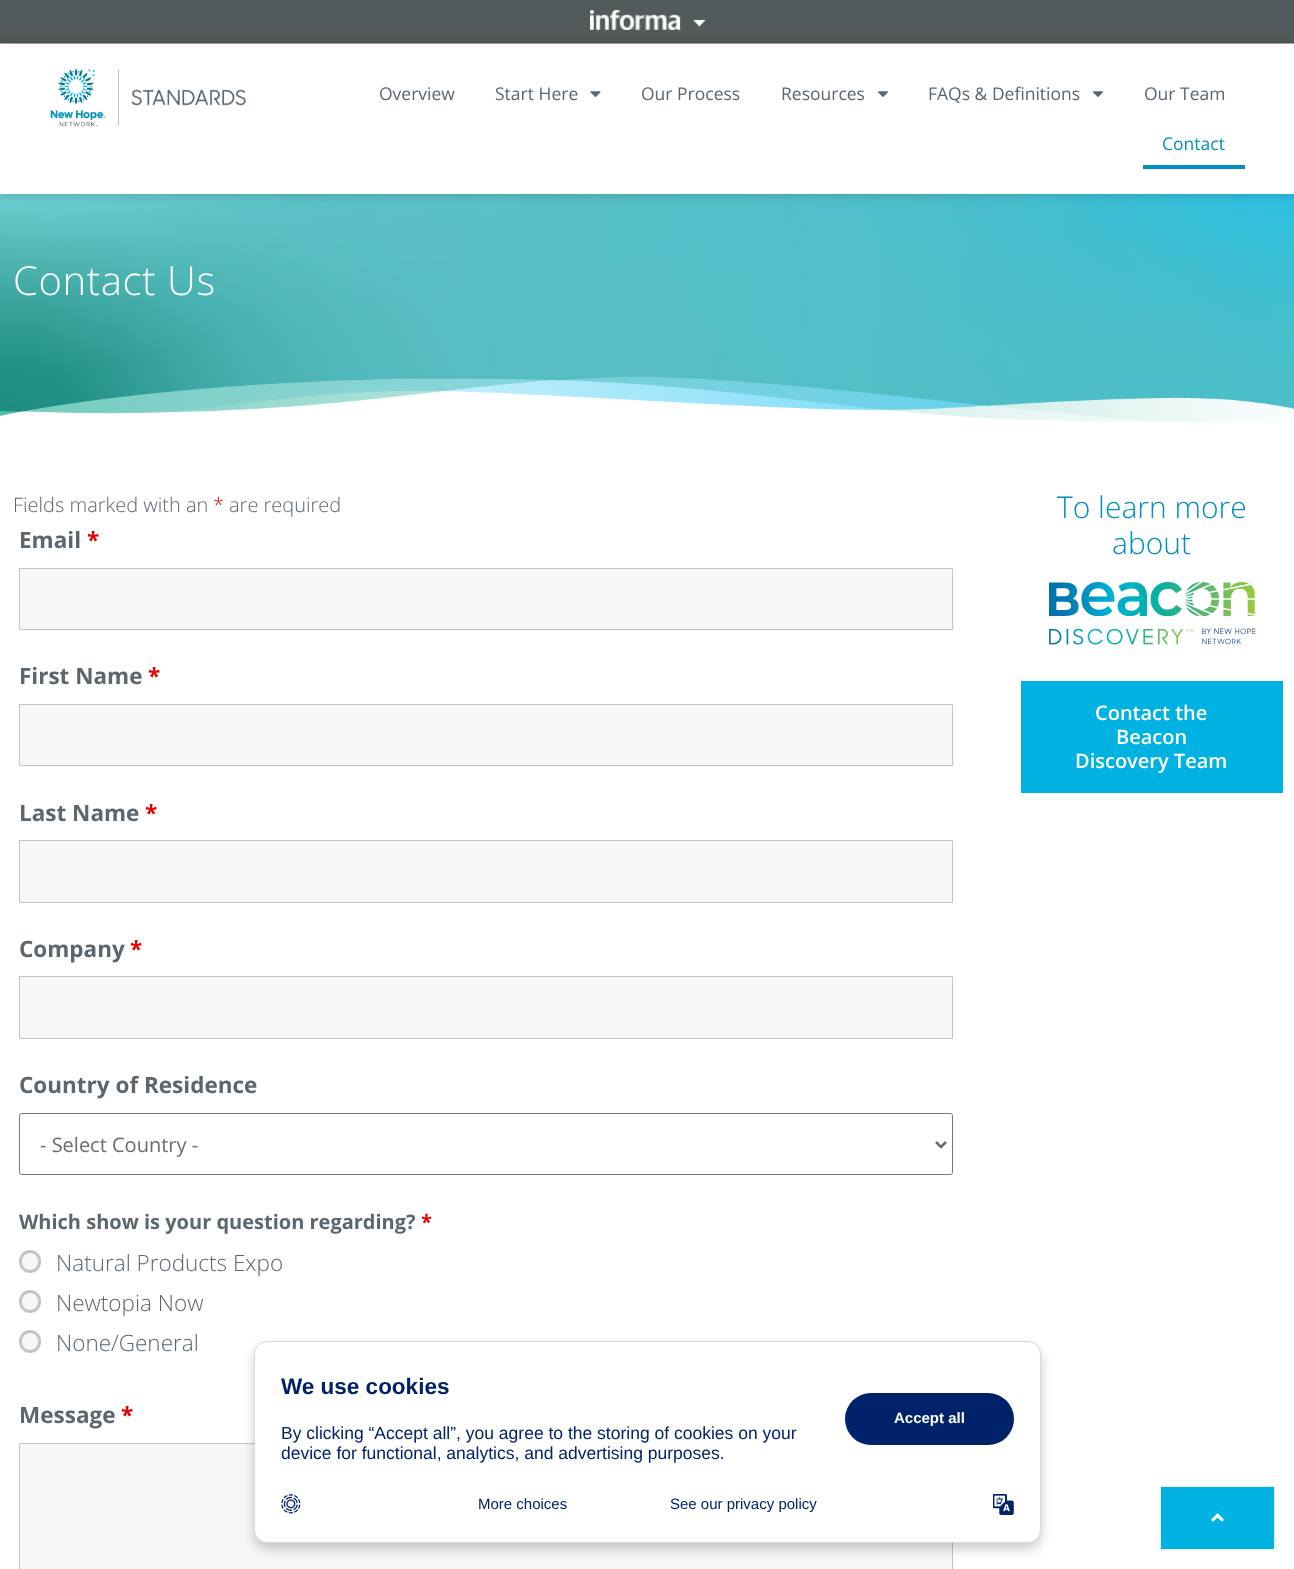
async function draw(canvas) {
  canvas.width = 1294
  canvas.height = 1569
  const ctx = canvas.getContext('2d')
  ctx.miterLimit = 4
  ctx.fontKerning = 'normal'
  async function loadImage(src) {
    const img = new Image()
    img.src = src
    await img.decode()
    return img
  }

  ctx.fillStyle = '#fff'
  ctx.fillRect(0, 0, 1294, 1569)
  ctx.fillStyle = '#525a5c'
  ctx.fillRect(0, 0, 1294, 43)
  ctx.fillStyle = '#a5acaf'
  ctx.fillRect(0, 43, 1294, 1)
  ctx.drawImage(await loadImage('image0.png'), 590, 10, 115, 20)
  ctx.drawImage(await loadImage('image4.png'), 0, 193, 1294, 230)
  ctx.save()
  ctx.beginPath()
  ctx.moveTo(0, 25)
  ctx.lineTo(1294, 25)
  ctx.lineTo(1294, 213)
  ctx.lineTo(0, 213)
  ctx.closePath()
  ctx.moveTo(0, 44)
  ctx.lineTo(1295, 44)
  ctx.lineTo(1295, 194)
  ctx.lineTo(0, 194)
  ctx.closePath()
  ctx.clip('evenodd')
  ctx.fillStyle = '#00000033'
  ctx.filter = 'blur(6px)'
  ctx.beginPath()
  ctx.rect(0, 44, 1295, 150)
  ctx.fill()
  ctx.filter = 'none'
  ctx.restore()
  ctx.fillStyle = '#ffffffe8'
  ctx.fillRect(0, 193, 1294, 1)
  ctx.drawImage(await loadImage('image1.png'), 50, 68, 196, 59)
  ctx.font = '17.5px Open Sans'
  ctx.fillStyle = '#5c666f'
  ctx.fillText('Overview', 379, 100)
  ctx.fillText('Start Here', 495, 100)
  ctx.drawImage(await loadImage('image2.png'), 590, 91, 11, 6)
  ctx.fillText('Our Process', 641, 100)
  ctx.fillText('Resources', 781, 100)
  ctx.drawImage(await loadImage('image3.png'), 877, 91, 11, 6)
  ctx.fillText('FAQs & Definitions', 928, 100)
  ctx.drawImage(await loadImage('image3.png'), 1092, 91, 11, 6)
  ctx.fillText('Our Team', 1144, 100)
  ctx.fillStyle = '#008fbe'
  ctx.fillText('Contact', 1162, 150)
  ctx.fillRect(1143, 165, 102, 4)
  ctx.letterSpacing = '0.6px'
  ctx.font = '300 40px Open Sans'
  ctx.fillStyle = '#fff'
  ctx.fillText('Contact Us', 13, 295)
  ctx.letterSpacing = '0px'
  ctx.font = '300 20px Open Sans'
  ctx.fillStyle = '#5c666f'
  ctx.fillText('Fields marked with an', 13, 512)
  ctx.fillStyle = '#e80000'
  ctx.fillText('*', 213, 512)
  ctx.fillStyle = '#5c666f'
  ctx.fillText('are required', 229, 512)
  ctx.font = 'bold 22.5px Open Sans'
  ctx.fillText('Email', 19, 548)
  ctx.fillStyle = '#e80000'
  ctx.fillText('*', 87, 548)
  ctx.fillStyle = '#f7f7f7'
  ctx.beginPath()
  ctx.rect(19.5, 568.5, 933, 61)
  ctx.fill()
  ctx.strokeStyle = '#c4c4c4'
  ctx.stroke()
  ctx.fillStyle = '#5c666f'
  ctx.fillText('First Name', 19, 684)
  ctx.fillStyle = '#e80000'
  ctx.fillText('*', 148, 684)
  ctx.fillStyle = '#f7f7f7'
  ctx.beginPath()
  ctx.rect(19.5, 704.5, 933, 61)
  ctx.fill()
  ctx.stroke()
  ctx.fillStyle = '#5c666f'
  ctx.fillText('Last Name', 19, 821)
  ctx.fillStyle = '#e80000'
  ctx.fillText('*', 145, 821)
  ctx.fillStyle = '#f7f7f7'
  ctx.beginPath()
  ctx.rect(19.5, 840.5, 933, 62)
  ctx.fill()
  ctx.stroke()
  ctx.fillStyle = '#5c666f'
  ctx.fillText('Company', 19, 957)
  ctx.fillStyle = '#e80000'
  ctx.fillText('*', 130, 957)
  ctx.fillStyle = '#f7f7f7'
  ctx.beginPath()
  ctx.rect(19.5, 976.5, 933, 62)
  ctx.fill()
  ctx.stroke()
  ctx.fillStyle = '#5c666f'
  ctx.fillText('Country of Residence', 19, 1093)
  ctx.beginPath()
  ctx.roundRect(19.5, 1113.5, 933, 61, 2)
  ctx.strokeStyle = '#767676'
  ctx.stroke()
  ctx.beginPath()
  ctx.moveTo(936, 1142)
  ctx.lineTo(941, 1147)
  ctx.lineTo(946, 1142)
  ctx.strokeStyle = '#6b6b6b'
  ctx.lineWidth = 2.5
  ctx.stroke()
  ctx.font = '20px Open Sans'
  ctx.fillStyle = '#6b6b6b'
  ctx.fillText('- Select Country -', 40, 1152)
  ctx.font = 'bold 20px Open Sans'
  ctx.fillStyle = '#5c666f'
  ctx.fillText('Which show is your question regarding?', 19, 1229)
  ctx.fillStyle = '#e80000'
  ctx.fillText('*', 421, 1229)
  ctx.fillStyle = '#f7f7f7'
  ctx.beginPath()
  ctx.roundRect(20.5, 1251.5, 19, 20, 9.5)
  ctx.fill()
  ctx.strokeStyle = '#c4c4c4'
  ctx.lineWidth = 3
  ctx.stroke()
  ctx.font = '300 22.5px Open Sans'
  ctx.fillStyle = '#5c666f'
  ctx.fillText('Natural Products Expo', 56, 1271)
  ctx.fillStyle = '#f7f7f7'
  ctx.beginPath()
  ctx.roundRect(20.5, 1291.5, 19, 20, 9.5)
  ctx.fill()
  ctx.stroke()
  ctx.fillStyle = '#5c666f'
  ctx.fillText('Newtopia Now', 56, 1311)
  ctx.fillStyle = '#f7f7f7'
  ctx.beginPath()
  ctx.roundRect(20.5, 1331.5, 19, 20, 9.5)
  ctx.fill()
  ctx.stroke()
  ctx.fillStyle = '#5c666f'
  ctx.fillText('None/General', 56, 1351)
  ctx.font = 'bold 22.5px Open Sans'
  ctx.fillText('Message', 19, 1423)
  ctx.fillStyle = '#e80000'
  ctx.fillText('*', 121, 1423)
  ctx.fillStyle = '#f7f7f7'
  ctx.beginPath()
  ctx.rect(19.5, 1443.5, 933, 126)
  ctx.fill()
  ctx.lineWidth = 1
  ctx.stroke()
  ctx.font = '300 30px Open Sans'
  ctx.fillStyle = '#008fbe'
  ctx.fillText('To learn more', 1057, 518)
  ctx.fillText('about', 1112, 554)
  ctx.drawImage(await loadImage('image5.png'), 1049, 582, 207, 63)
  ctx.fillStyle = '#00b2e2'
  ctx.fillRect(1021, 681, 262, 112)
  ctx.font = '600 20px Open Sans'
  ctx.fillStyle = '#fff'
  ctx.fillText('Contact the', 1095, 720)
  ctx.fillText('Beacon', 1116, 744)
  ctx.fillText('Discovery Team', 1075, 768)
  ctx.fillStyle = '#00b2e2'
  ctx.beginPath()
  ctx.rect(1160.5, 1486.5, 114, 63)
  ctx.fill()
  ctx.strokeStyle = '#e9ecef'
  ctx.stroke()
  ctx.drawImage(await loadImage('image6.png'), 1211, 1513, 13, 9)
  ctx.fillStyle = '#00000033'
  ctx.filter = 'blur(6px)'
  ctx.beginPath()
  ctx.roundRect(254, 1348, 787, 201, 13)
  ctx.fill()
  ctx.filter = 'none'
  ctx.fillStyle = '#fff'
  ctx.beginPath()
  ctx.roundRect(254.5, 1341.5, 786, 201, 12.5)
  ctx.fill()
  ctx.strokeStyle = '#d8d8d8'
  ctx.stroke()
  ctx.font = 'bold 22.5px Liberation Sans'
  ctx.fillStyle = '#00226a'
  ctx.fillText('We use cookies', 281, 1394)
  ctx.font = '17.5px Liberation Sans'
  ctx.fillText('By clicking “Accept all”, you agree to the storing of cookies on your', 281, 1439)
  ctx.fillText('device for functional, analytics, and advertising purposes.', 281, 1459)
  ctx.beginPath()
  ctx.roundRect(845, 1393, 169, 52, 26)
  ctx.fill()
  ctx.font = 'bold 15px Liberation Sans'
  ctx.fillStyle = '#fff'
  ctx.fillText('Accept all', 894, 1423)
  ctx.drawImage(await loadImage('image7.png'), 281, 1494, 20, 20)
  ctx.font = '15px Liberation Sans'
  ctx.fillStyle = '#00226a'
  ctx.fillText('More choices', 478, 1509)
  ctx.fillText('See our privacy policy', 670, 1509)
  ctx.drawImage(await loadImage('image8.png'), 993, 1494, 21, 21)
}

draw(document.querySelector('canvas'))
